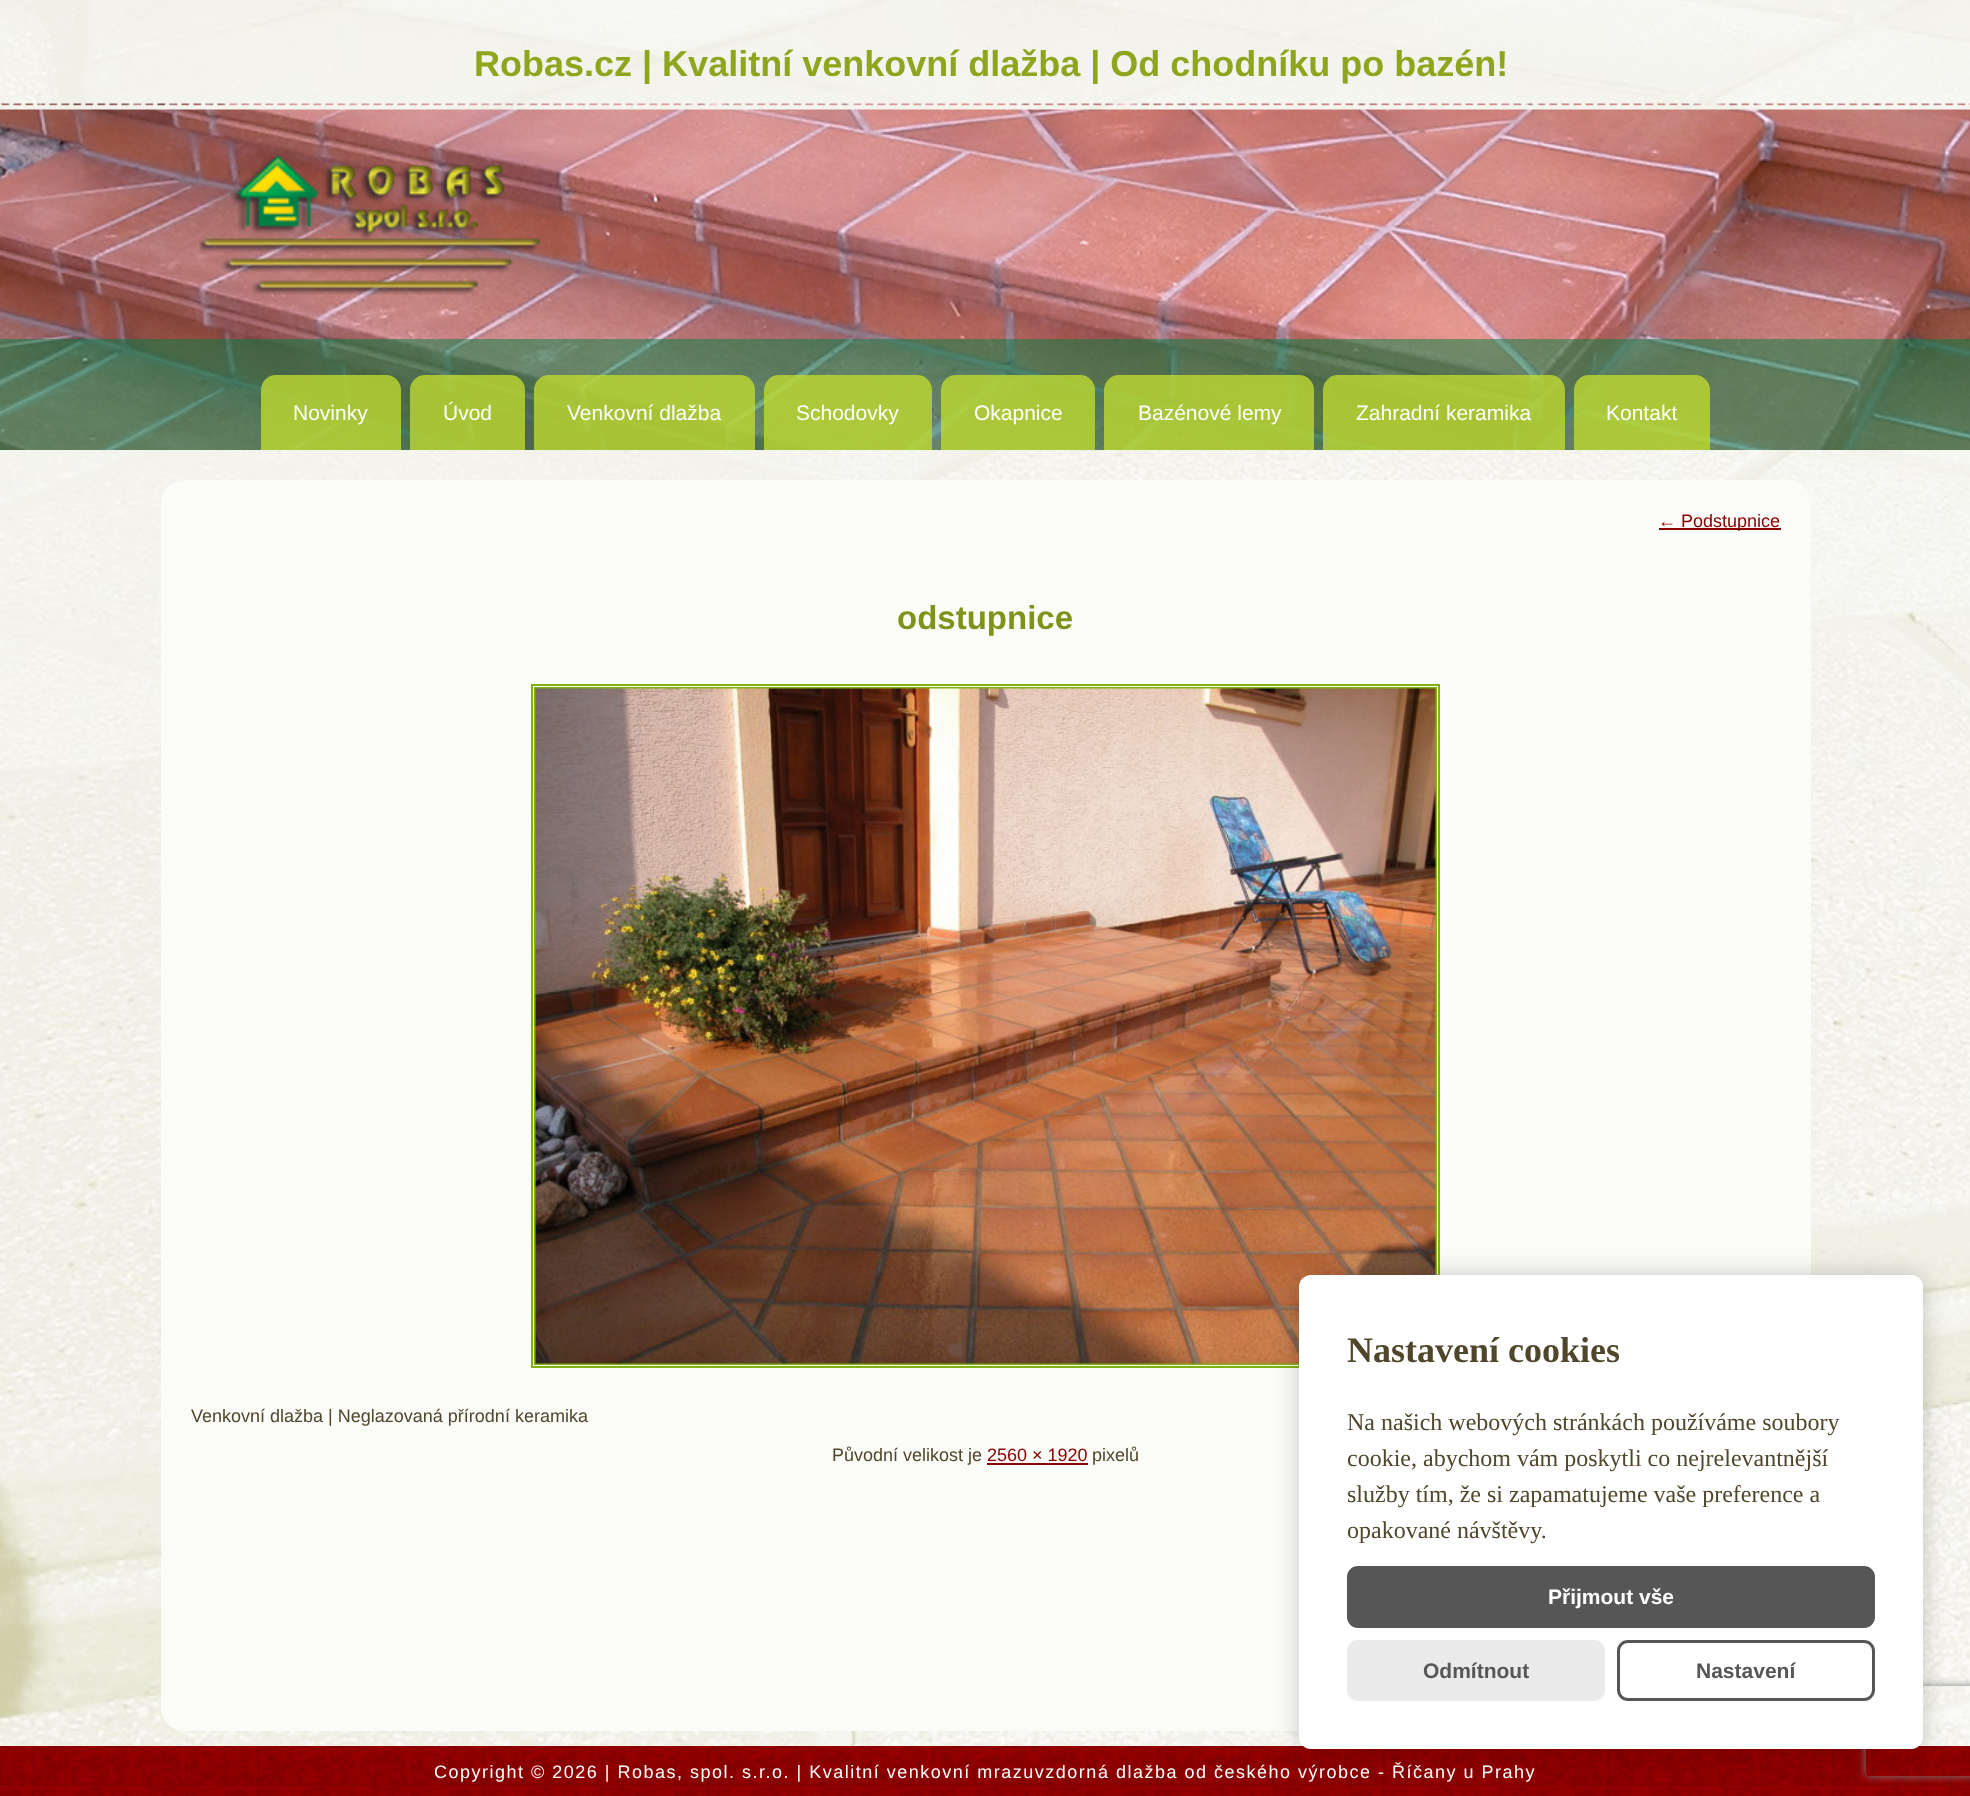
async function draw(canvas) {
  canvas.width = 1970
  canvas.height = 1796
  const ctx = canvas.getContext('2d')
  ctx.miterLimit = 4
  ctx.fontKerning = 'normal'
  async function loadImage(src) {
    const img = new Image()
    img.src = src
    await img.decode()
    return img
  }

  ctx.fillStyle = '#fff'
  ctx.fillRect(0, 0, 1970, 1796)
  ctx.drawImage(await loadImage('image0.png'), 0, 0, 1970, 1746)
  ctx.drawImage(await loadImage('image1.png'), 0, 103, 1970, 347)
  ctx.font = 'bold 36px Liberation Sans'
  ctx.fillStyle = '#8ea51d'
  ctx.fillText('Robas.cz | Kvalitní venkovní dlažba | Od chodníku po bazén!', 474, 76)
  ctx.drawImage(await loadImage('image2.png'), 199, 154, 342, 141)
  ctx.fillStyle = '#00804480'
  ctx.fillRect(0, 339, 1970, 111)
  ctx.fillStyle = '#beda2fcc'
  ctx.beginPath()
  ctx.roundRect(261, 375, 140, 75, [15, 15, 0, 0])
  ctx.fill()
  ctx.font = '21px Liberation Sans'
  ctx.fillStyle = '#fff'
  ctx.fillText('Novinky', 293, 420)
  ctx.fillStyle = '#beda2fcc'
  ctx.beginPath()
  ctx.roundRect(410, 375, 115, 75, [15, 15, 0, 0])
  ctx.fill()
  ctx.fillStyle = '#fff'
  ctx.fillText('Úvod', 443, 420)
  ctx.fillStyle = '#beda2fcc'
  ctx.beginPath()
  ctx.roundRect(534, 375, 221, 75, [15, 15, 0, 0])
  ctx.fill()
  ctx.fillStyle = '#fff'
  ctx.fillText('Venkovní dlažba', 567, 420)
  ctx.fillStyle = '#beda2fcc'
  ctx.beginPath()
  ctx.roundRect(764, 375, 168, 75, [15, 15, 0, 0])
  ctx.fill()
  ctx.fillStyle = '#fff'
  ctx.fillText('Schodovky', 796, 420)
  ctx.fillStyle = '#beda2fcc'
  ctx.beginPath()
  ctx.roundRect(941, 375, 154, 75, [15, 15, 0, 0])
  ctx.fill()
  ctx.fillStyle = '#fff'
  ctx.fillText('Okapnice', 974, 420)
  ctx.fillStyle = '#beda2fcc'
  ctx.beginPath()
  ctx.roundRect(1104, 375, 210, 75, [15, 15, 0, 0])
  ctx.fill()
  ctx.fillStyle = '#fff'
  ctx.fillText('Bazénové lemy', 1138, 420)
  ctx.fillStyle = '#beda2fcc'
  ctx.beginPath()
  ctx.roundRect(1323, 375, 242, 75, [15, 15, 0, 0])
  ctx.fill()
  ctx.fillStyle = '#fff'
  ctx.fillText('Zahradní keramika', 1356, 420)
  ctx.fillStyle = '#beda2fcc'
  ctx.beginPath()
  ctx.roundRect(1574, 375, 136, 75, [15, 15, 0, 0])
  ctx.fill()
  ctx.fillStyle = '#fff'
  ctx.fillText('Kontakt', 1606, 420)
  ctx.fillStyle = '#fbfbf8'
  ctx.beginPath()
  ctx.roundRect(161, 480, 1650, 1251, 23)
  ctx.fill()
  ctx.fillStyle = '#8b0000'
  ctx.fillRect(1659, 528, 122, 2)
  ctx.font = '18px Liberation Sans'
  ctx.fillText('← Podstupnice', 1658, 527)
  ctx.font = 'bold 33px Liberation Sans'
  ctx.fillStyle = '#7f931a'
  ctx.fillText('odstupnice', 897, 629)
  ctx.strokeStyle = '#7fb30f'
  ctx.lineWidth = 2
  ctx.strokeRect(532, 685, 907, 682)
  ctx.strokeRect(535, 688, 901, 676)
  ctx.drawImage(await loadImage('image3.png'), 535, 688, 901, 676)
  ctx.font = '18px Liberation Sans'
  ctx.fillStyle = '#50462b'
  ctx.fillText('Venkovní dlažba | Neglazovaná přírodní keramika', 191, 1422)
  ctx.fillText('Původní velikost je', 832, 1461)
  ctx.fillStyle = '#8b0000'
  ctx.fillText('2560 × 1920', 987, 1461)
  ctx.fillRect(987, 1463, 101, 2)
  ctx.fillStyle = '#50462b'
  ctx.fillText('pixelů', 1092, 1461)
  ctx.fillStyle = '#8b0000'
  ctx.fillRect(0, 1746, 1970, 50)
  ctx.drawImage(await loadImage('image4.png'), 0, 1746, 1970, 50)
  ctx.letterSpacing = '1.5px'
  ctx.fillStyle = '#fff'
  ctx.fillText('Copyright © 2026 | Robas, spol. s.r.o. | Kvalitní venkovní mrazuvzdorná dlažba od českého výrobce - Říčany u Prahy', 434, 1778)
  ctx.fillStyle = '#00000033'
  ctx.filter = 'blur(12px)'
  ctx.beginPath()
  ctx.roundRect(1299, 1275, 624, 474, 12)
  ctx.fill()
  ctx.filter = 'none'
  ctx.save()
  ctx.beginPath()
  ctx.moveTo(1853, 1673)
  ctx.lineTo(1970, 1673)
  ctx.lineTo(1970, 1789)
  ctx.lineTo(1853, 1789)
  ctx.closePath()
  ctx.moveTo(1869, 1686)
  ctx.lineTo(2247, 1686)
  ctx.bezierCurveTo(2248.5, 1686, 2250, 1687.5, 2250, 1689)
  ctx.lineTo(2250, 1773)
  ctx.bezierCurveTo(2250, 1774.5, 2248.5, 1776, 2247, 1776)
  ctx.lineTo(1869, 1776)
  ctx.bezierCurveTo(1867.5, 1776, 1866, 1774.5, 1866, 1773)
  ctx.lineTo(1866, 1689)
  ctx.bezierCurveTo(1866, 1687.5, 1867.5, 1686, 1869, 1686)
  ctx.closePath()
  ctx.clip('evenodd')
  ctx.fillStyle = '#808080'
  ctx.filter = 'blur(4px)'
  ctx.beginPath()
  ctx.roundRect(1866, 1686, 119, 90, 3)
  ctx.fill()
  ctx.filter = 'none'
  ctx.restore()
  ctx.fillStyle = '#fff'
  ctx.beginPath()
  ctx.roundRect(1299, 1275, 624, 474, 12)
  ctx.fill()
  ctx.letterSpacing = '0px'
  ctx.font = 'bold 36px Liberation Serif'
  ctx.fillStyle = '#50462b'
  ctx.fillText('Nastavení cookies', 1347, 1362)
  ctx.font = '24px Liberation Serif'
  ctx.fillText('Na našich webových stránkách používáme soubory', 1347, 1430)
  ctx.fillText('cookie, abychom vám poskytli co nejrelevantnější', 1347, 1466)
  ctx.fillText('služby tím, že si zapamatujeme vaše preference a', 1347, 1502)
  ctx.fillText('opakované návštěvy.', 1347, 1538)
  ctx.fillStyle = '#565656'
  ctx.beginPath()
  ctx.roundRect(1348.5, 1567.5, 525, 59, 9.5)
  ctx.fill()
  ctx.strokeStyle = '#565656'
  ctx.lineWidth = 3
  ctx.stroke()
  ctx.font = 'bold 21px Liberation Sans'
  ctx.fillStyle = '#fff'
  ctx.fillText('Přijmout vše', 1548, 1604)
  ctx.fillStyle = '#eaeaea'
  ctx.beginPath()
  ctx.roundRect(1348.5, 1641.5, 255, 58, 9.5)
  ctx.fill()
  ctx.strokeStyle = '#eaeaea'
  ctx.stroke()
  ctx.fillStyle = '#565656'
  ctx.fillText('Odmítnout', 1423, 1678)
  ctx.beginPath()
  ctx.roundRect(1618.5, 1641.5, 255, 58, 9.5)
  ctx.strokeStyle = '#565656'
  ctx.stroke()
  ctx.fillText('Nastavení', 1696, 1678)
}

draw(document.querySelector('canvas'))
